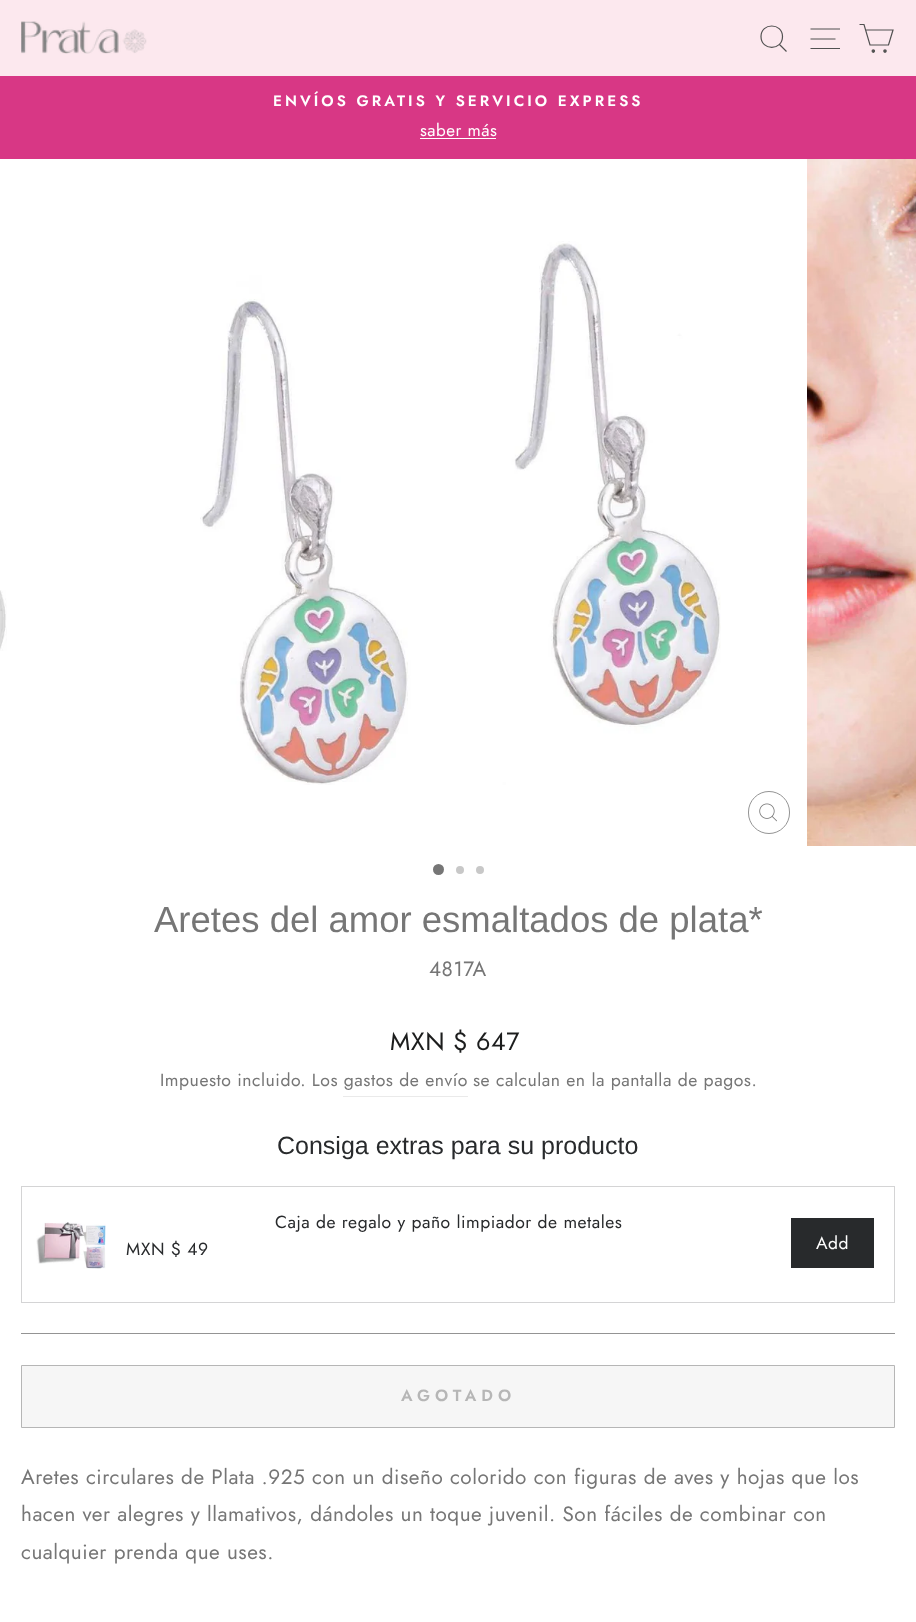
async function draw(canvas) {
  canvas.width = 916
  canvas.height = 1622
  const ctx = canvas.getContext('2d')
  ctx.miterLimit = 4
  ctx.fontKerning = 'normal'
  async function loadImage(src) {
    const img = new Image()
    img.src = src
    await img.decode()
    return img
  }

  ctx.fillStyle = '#fff'
  ctx.fillRect(0, 0, 916, 1622)
  ctx.fillStyle = '#fce8ee'
  ctx.fillRect(0, 0, 916, 76)
  ctx.drawImage(await loadImage('image0.png'), 21, 21, 126, 33)
  ctx.beginPath()
  ctx.moveTo(782.5, 36.5)
  ctx.bezierCurveTo(782.5, 51, 761, 51, 761, 36.5)
  ctx.bezierCurveTo(761, 22.5, 782.5, 22.5, 782.5, 36.5)
  ctx.closePath()
  ctx.moveTo(786.5, 51.5)
  ctx.lineTo(779.5, 44.5)
  ctx.strokeStyle = '#515151'
  ctx.lineWidth = 1.2
  ctx.stroke()
  ctx.beginPath()
  ctx.moveTo(810.5, 29)
  ctx.lineTo(840, 29)
  ctx.moveTo(810.5, 39)
  ctx.lineTo(835.5, 39)
  ctx.moveTo(810.5, 48.5)
  ctx.lineTo(840, 48.5)
  ctx.stroke()
  ctx.beginPath()
  ctx.moveTo(865.5, 30)
  ctx.lineTo(893, 30)
  ctx.lineTo(888.5, 45)
  ctx.lineTo(870, 45)
  ctx.lineTo(864, 24.5)
  ctx.lineTo(859.5, 24.5)
  ctx.stroke()
  ctx.fillStyle = '#515151'
  ctx.beginPath()
  ctx.arc(873.3, 51.1, 1.2, 0, 2 * Math.PI)
  ctx.fill()
  ctx.stroke()
  ctx.beginPath()
  ctx.arc(885, 51.1, 1.2, 0, 2 * Math.PI)
  ctx.fill()
  ctx.stroke()
  ctx.fillStyle = '#d83785'
  ctx.fillRect(0, 76, 916, 83)
  ctx.letterSpacing = '3.05px'
  ctx.font = '600 15.2px Jost'
  ctx.fillStyle = '#fff'
  ctx.fillText('ENVÍOS GRATIS Y SERVICIO EXPRESS', 273, 106)
  ctx.letterSpacing = '0.52px'
  ctx.font = '17px Jost'
  ctx.fillText('saber más', 420, 136)
  ctx.fillRect(420, 138, 76, 1)
  ctx.drawImage(await loadImage('image1.png'), 0, 590, 7, 61)
  ctx.drawImage(await loadImage('image2.png'), 200, 241, 521, 544)
  ctx.beginPath()
  ctx.roundRect(748.5, 791.5, 41, 42, 20.5)
  ctx.strokeStyle = '#949494'
  ctx.lineWidth = 1
  ctx.stroke()
  ctx.drawImage(await loadImage('image3.png'), 759, 803, 18, 19)
  ctx.drawImage(await loadImage('image4.png'), 807, 159, 109, 687)
  ctx.fillStyle = '#767676'
  ctx.beginPath()
  ctx.arc(438.5, 869.5, 5.5, 0, 2 * Math.PI)
  ctx.fill()
  ctx.fillStyle = '#c8c8c8'
  ctx.beginPath()
  ctx.arc(460, 870, 4, 0, 2 * Math.PI)
  ctx.fill()
  ctx.beginPath()
  ctx.arc(480, 870, 4, 0, 2 * Math.PI)
  ctx.fill()
  ctx.letterSpacing = '0px'
  ctx.font = '36.5px Liberation Sans'
  ctx.fillStyle = '#767676'
  ctx.fillText('Aretes del amor esmaltados de plata*', 154, 932)
  ctx.letterSpacing = '0.52px'
  ctx.font = '20.7px Jost'
  ctx.fillText('4817A', 429, 976)
  ctx.font = '25px Jost'
  ctx.fillStyle = '#1c1d1d'
  ctx.fillText('MXN $ 647', 390, 1050)
  ctx.font = '17.6px Jost'
  ctx.fillStyle = '#767676'
  ctx.fillText('Impuesto incluido. Los gastos de envío', 160, 1086)
  ctx.fillText('se calculan en la pantalla de pagos.', 473, 1086)
  ctx.fillStyle = '#eaeaea'
  ctx.fillRect(343, 1096, 125, 1)
  ctx.letterSpacing = '0px'
  ctx.font = '25px Liberation Sans'
  ctx.fillStyle = '#282a2c'
  ctx.fillText('Consiga extras para su producto', 277, 1154)
  ctx.strokeStyle = '#d4d4d5'
  ctx.strokeRect(21.5, 1186.5, 873, 116)
  ctx.drawImage(await loadImage('image5.png'), 36, 1222, 70, 47)
  ctx.letterSpacing = '0.52px'
  ctx.font = '17.5px Jost'
  ctx.fillText('Caja de regalo y paño limpiador de metales', 275, 1228)
  ctx.fillText('MXN $ 49', 126, 1255)
  ctx.fillRect(791, 1218, 83, 50)
  ctx.letterSpacing = '0.5px'
  ctx.fillStyle = '#fff'
  ctx.fillText('Add', 816, 1249)
  ctx.fillStyle = '#949494'
  ctx.fillRect(21, 1333, 874, 1)
  ctx.fillStyle = '#f6f6f6'
  ctx.beginPath()
  ctx.rect(21.5, 1365.5, 873, 62)
  ctx.fill()
  ctx.strokeStyle = '#b6b6b6'
  ctx.stroke()
  ctx.letterSpacing = '5px'
  ctx.font = '600 16.25px Jost'
  ctx.fillStyle = '#b6b6b6'
  ctx.fillText('AGOTADO', 401, 1401)
  ctx.letterSpacing = '0.52px'
  ctx.font = '20.7px Jost'
  ctx.fillStyle = '#767676'
  ctx.fillText('Aretes circulares de Plata .925 con un diseño colorido con figuras de aves y hojas que los', 21, 1484)
  ctx.fillText('hacen ver alegres y llamativos, dándoles un toque juvenil. Son fáciles de combinar con', 21, 1521)
  ctx.fillText('cualquier prenda que uses.', 21, 1559)
}

draw(document.querySelector('canvas'))
